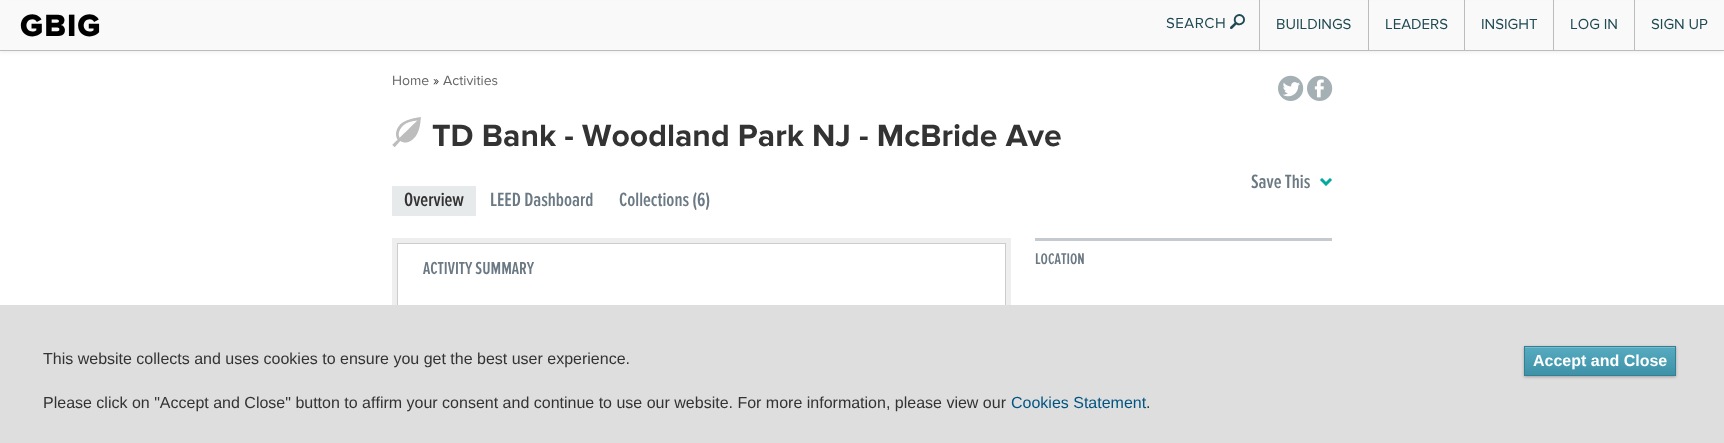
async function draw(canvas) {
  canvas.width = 1724
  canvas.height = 443
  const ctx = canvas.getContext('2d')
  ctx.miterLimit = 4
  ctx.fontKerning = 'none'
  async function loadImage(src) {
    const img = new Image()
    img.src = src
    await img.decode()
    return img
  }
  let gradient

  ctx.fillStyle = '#fff'
  ctx.fillRect(0, 0, 1724, 443)
  ctx.fillStyle = '#00000012'
  ctx.filter = 'blur(2px)'
  ctx.beginPath()
  ctx.rect(0, 1, 1724, 51)
  ctx.fill()
  ctx.filter = 'none'
  ctx.fillStyle = '#f9f9f9'
  ctx.fillRect(0, 1, 1724, 49)
  ctx.fillStyle = '#bcbcbc'
  ctx.fillRect(0, 50, 1724, 1)
  ctx.letterSpacing = '1px'
  ctx.font = '800 32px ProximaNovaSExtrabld'
  ctx.fillStyle = '#000'
  ctx.fillText('GBIG', 20, 36)
  ctx.letterSpacing = '0.5px'
  ctx.font = '15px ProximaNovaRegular'
  ctx.fillStyle = '#204a53'
  ctx.fillText('SEARCH', 1166, 28)
  ctx.font = '15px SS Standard'
  ctx.fillText('🔎', 1230, 29)
  ctx.fillStyle = '#bcbcbc'
  ctx.fillRect(1259, 0, 1, 50)
  ctx.letterSpacing = '0px'
  ctx.font = '15px ProximaNovaRegular'
  ctx.fillStyle = '#204a53'
  ctx.fillText('BUILDINGS', 1276, 29)
  ctx.fillStyle = '#bcbcbc'
  ctx.fillRect(1368, 0, 1, 50)
  ctx.fillStyle = '#204a53'
  ctx.fillText('LEADERS', 1385, 29)
  ctx.fillStyle = '#bcbcbc'
  ctx.fillRect(1464, 0, 1, 50)
  ctx.fillStyle = '#204a53'
  ctx.fillText('INSIGHT', 1481, 29)
  ctx.fillStyle = '#bcbcbc'
  ctx.fillRect(1553, 0, 1, 50)
  ctx.fillStyle = '#204a53'
  ctx.fillText('LOG IN', 1570, 29)
  ctx.fillStyle = '#bcbcbc'
  ctx.fillRect(1634, 0, 1, 50)
  ctx.fillStyle = '#204a53'
  ctx.fillText('SIGN UP', 1651, 29)
  ctx.font = '14px ProximaNovaRegular'
  ctx.fillStyle = '#666'
  ctx.fillText('Home', 392, 85)
  ctx.fillStyle = '#333'
  ctx.fillText('»', 433, 85)
  ctx.fillStyle = '#666'
  ctx.fillText('Activities', 443, 85)
  ctx.drawImage(await loadImage('image0.png'), 1278, 75, 26, 26)
  ctx.drawImage(await loadImage('image1.png'), 1307, 75, 26, 26)
  ctx.drawImage(await loadImage('image2.png'), 392, 117, 29, 30)
  ctx.font = 'bold 32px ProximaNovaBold'
  ctx.fillStyle = '#333'
  ctx.fillText('TD Bank - Woodland Park NJ - McBride Ave', 432, 146)
  ctx.font = '600 20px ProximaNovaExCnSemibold'
  ctx.fillStyle = '#6b7984'
  ctx.fillText('Save This', 1251, 188)
  ctx.drawImage(await loadImage('image3.png'), 1320, 178, 12, 8)
  ctx.fillStyle = '#e7eaeb'
  ctx.fillRect(392, 186, 84, 30)
  ctx.fillStyle = '#333'
  ctx.fillText('Overview', 404, 206)
  ctx.fillStyle = '#6b7984'
  ctx.fillText('LEED Dashboard', 490, 206)
  ctx.fillText('Collections (6)', 619, 206)
  ctx.fillStyle = '#c4cace'
  ctx.fillRect(1035, 238, 297, 3)
  ctx.font = '600 16px ProximaNovaExCnSemibold'
  ctx.fillStyle = '#6b7984'
  ctx.fillText('LOCATION', 1035, 264)
  ctx.strokeStyle = '#eee'
  ctx.lineWidth = 5
  ctx.strokeRect(394.5, 240.5, 614, 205)
  ctx.strokeStyle = '#ccc'
  ctx.lineWidth = 1
  ctx.strokeRect(397.5, 243.5, 608, 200)
  ctx.font = '600 18px ProximaNovaExCnSemibold'
  ctx.fillText('ACTIVITY SUMMARY', 423, 274)
  ctx.fillStyle = '#dfdedf'
  ctx.fillRect(0, 305, 1724, 138)
  ctx.font = '16px Liberation Sans'
  ctx.fillStyle = '#333'
  ctx.fillText('This website collects and uses cookies to ensure you get the best user experience.', 43, 364)
  ctx.fillText('Please click on "Accept and Close" button to affirm your consent and continue to use our website. For more information, please view our', 43, 408)
  ctx.fillStyle = '#005580'
  ctx.fillText('Cookies Statement', 1011, 408)
  ctx.fillStyle = '#333'
  ctx.fillText('.', 1146, 408)
  ctx.fillStyle = '#00000047'
  ctx.filter = 'blur(1.5px)'
  ctx.beginPath()
  ctx.rect(1524, 347, 152, 30)
  ctx.fill()
  ctx.filter = 'none'
  gradient = ctx.createLinearGradient(1525, 347, 1525, 375)
  gradient.addColorStop(0, '#57abc0')
  gradient.addColorStop(1, '#3d92a8')
  ctx.fillStyle = gradient
  ctx.fillRect(1525, 348, 150, 27)
  ctx.fillStyle = '#78bbcc'
  ctx.fillRect(1525, 347, 150, 1)
  ctx.strokeStyle = '#347f93'
  ctx.strokeRect(1524.5, 346.5, 151, 29)
  ctx.font = 'bold 16px Liberation Sans'
  ctx.fillStyle = '#fff'
  ctx.fillText('Accept and Close', 1533, 366)
}

draw(document.querySelector('canvas'))
